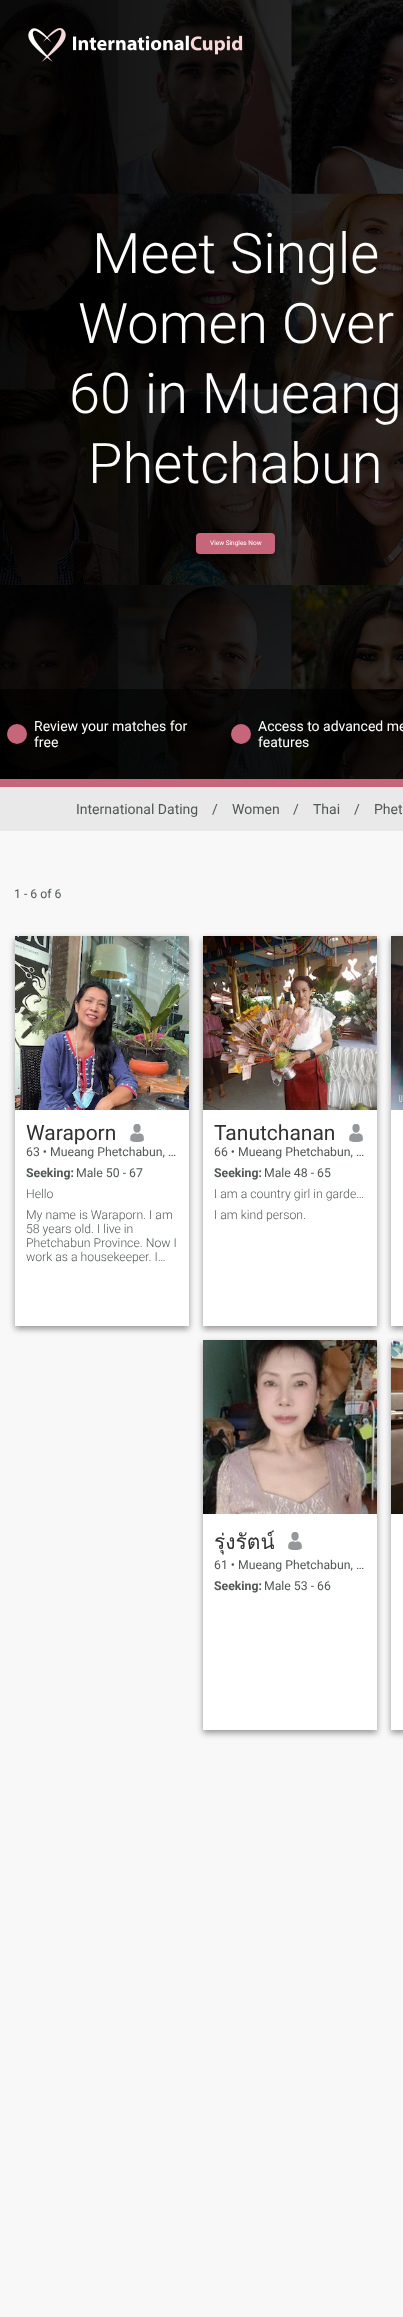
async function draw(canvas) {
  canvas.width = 403
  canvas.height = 2317
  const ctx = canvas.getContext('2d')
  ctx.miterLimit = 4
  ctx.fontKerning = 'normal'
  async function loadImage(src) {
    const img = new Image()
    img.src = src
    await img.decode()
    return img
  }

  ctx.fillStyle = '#f8f8f8'
  ctx.fillRect(0, 0, 403, 2317)
  ctx.drawImage(await loadImage('image2.png'), 0, 0, 403, 779)
  ctx.drawImage(await loadImage('image0.png'), 28, 28, 38, 34)
  ctx.drawImage(await loadImage('image1.png'), 73, 35, 170, 20)
  ctx.font = '300 56px Roboto'
  ctx.fillStyle = '#fff'
  ctx.fillText('Meet Single', 92, 273)
  ctx.fillText('Women Over', 78, 343)
  ctx.fillText('60 in Mueang', 69, 413)
  ctx.fillText('Phetchabun', 88, 483)
  ctx.fillStyle = '#00000066'
  ctx.filter = 'blur(3px)'
  ctx.beginPath()
  ctx.roundRect(196, 536, 79, 21, 4)
  ctx.fill()
  ctx.filter = 'none'
  ctx.fillStyle = '#c7657b'
  ctx.beginPath()
  ctx.roundRect(196, 533, 79, 21, 4)
  ctx.fill()
  ctx.font = '6.5px Roboto'
  ctx.fillStyle = '#fff'
  ctx.fillText('View Singles Now', 210, 545)
  ctx.fillStyle = '#00000099'
  ctx.fillRect(0, 689, 403, 90)
  ctx.fillStyle = '#c7657b'
  ctx.beginPath()
  ctx.arc(17, 734, 10, 0, 2 * Math.PI)
  ctx.fill()
  ctx.font = '14px Roboto'
  ctx.fillStyle = '#fff'
  ctx.fillText('Review your matches for', 34, 731)
  ctx.fillText('free', 34, 747)
  ctx.fillStyle = '#c7657b'
  ctx.beginPath()
  ctx.arc(241, 734, 10, 0, 2 * Math.PI)
  ctx.fill()
  ctx.fillStyle = '#fff'
  ctx.fillText('Access to advanced me', 258, 731)
  ctx.fillText('features', 258, 747)
  ctx.fillStyle = '#c7657b'
  ctx.fillRect(0, 779, 403, 8)
  ctx.fillStyle = '#e9e9e9'
  ctx.fillRect(0, 787, 403, 44)
  ctx.fillStyle = '#505656'
  ctx.fillText('International Dating', 76, 814)
  ctx.fillText('/', 212, 814)
  ctx.fillText('Women', 232, 814)
  ctx.fillText('/', 293, 814)
  ctx.fillText('Thai', 313, 814)
  ctx.fillText('/', 354, 814)
  ctx.fillText('Phet', 374, 814)
  ctx.font = '12.25px Roboto'
  ctx.fillText('1 - 6 of 6', 14, 898)
  ctx.fillStyle = '#00000066'
  ctx.filter = 'blur(3px)'
  ctx.beginPath()
  ctx.rect(15, 939, 174, 390)
  ctx.fill()
  ctx.filter = 'none'
  ctx.fillStyle = '#fff'
  ctx.fillRect(15, 1110, 174, 216)
  ctx.drawImage(await loadImage('image3.png'), 15, 936, 174, 174)
  ctx.font = '21px Roboto'
  ctx.fillStyle = '#323232'
  ctx.fillText('Waraporn', 26, 1140)
  ctx.drawImage(await loadImage('image4.png'), 130, 1124, 14, 18)
  ctx.font = '12.25px Roboto'
  ctx.fillStyle = '#505656'
  ctx.fillText('63 • Mueang Phetchabun, …', 26, 1156)
  ctx.font = 'bold 12.25px Roboto'
  ctx.fillText('Seeking:', 26, 1177)
  ctx.font = '12.25px Roboto'
  ctx.fillText('Male 50 - 67', 76, 1177)
  ctx.font = '300 12.25px Roboto'
  ctx.fillText('Hello', 26, 1198)
  ctx.fillText('My name is Waraporn. I am', 26, 1219)
  ctx.fillText('58 years old. I live in', 26, 1233)
  ctx.fillText('Phetchabun Province. Now I', 26, 1247)
  ctx.fillText('work as a housekeeper. I…', 26, 1261)
  ctx.fillStyle = '#00000066'
  ctx.filter = 'blur(3px)'
  ctx.beginPath()
  ctx.rect(203, 939, 174, 390)
  ctx.fill()
  ctx.filter = 'none'
  ctx.fillStyle = '#fff'
  ctx.fillRect(203, 1110, 174, 216)
  ctx.drawImage(await loadImage('image5.png'), 203, 936, 174, 174)
  ctx.font = '21px Roboto'
  ctx.fillStyle = '#323232'
  ctx.fillText('Tanutchanan', 214, 1140)
  ctx.drawImage(await loadImage('image4.png'), 349, 1124, 14, 18)
  ctx.font = '12.25px Roboto'
  ctx.fillStyle = '#505656'
  ctx.fillText('66 • Mueang Phetchabun, …', 214, 1156)
  ctx.font = 'bold 12.25px Roboto'
  ctx.fillText('Seeking:', 214, 1177)
  ctx.font = '12.25px Roboto'
  ctx.fillText('Male 48 - 65', 264, 1177)
  ctx.font = '300 12.25px Roboto'
  ctx.fillText('I am a country girl in garde…', 214, 1198)
  ctx.fillText('I am kind person.', 214, 1219)
  ctx.fillStyle = '#00000066'
  ctx.filter = 'blur(3px)'
  ctx.beginPath()
  ctx.rect(391, 939, 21, 390)
  ctx.fill()
  ctx.filter = 'none'
  ctx.fillStyle = '#fff'
  ctx.fillRect(391, 1110, 12, 216)
  ctx.drawImage(await loadImage('image6.png'), 391, 936, 12, 174)
  ctx.fillStyle = '#00000066'
  ctx.filter = 'blur(3px)'
  ctx.beginPath()
  ctx.rect(203, 1343, 174, 390)
  ctx.fill()
  ctx.filter = 'none'
  ctx.fillStyle = '#fff'
  ctx.fillRect(203, 1514, 174, 216)
  ctx.drawImage(await loadImage('image7.png'), 203, 1340, 174, 174)
  ctx.save()
  ctx.beginPath()
  ctx.rect(214, 1525, 60, 33)
  ctx.clip()
  ctx.font = '21px Loma'
  ctx.fillStyle = '#323232'
  ctx.fillText('ุรุ่งรัตน์', 214, 1549)
  ctx.restore()
  ctx.drawImage(await loadImage('image4.png'), 288, 1532, 14, 18)
  ctx.font = '12.25px Roboto'
  ctx.fillStyle = '#505656'
  ctx.fillText('61 • Mueang Phetchabun, …', 214, 1569)
  ctx.font = 'bold 12.25px Roboto'
  ctx.fillText('Seeking:', 214, 1590)
  ctx.font = '12.25px Roboto'
  ctx.fillText('Male 53 - 66', 264, 1590)
  ctx.fillStyle = '#00000066'
  ctx.filter = 'blur(3px)'
  ctx.beginPath()
  ctx.rect(391, 1343, 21, 390)
  ctx.fill()
  ctx.filter = 'none'
  ctx.fillStyle = '#fff'
  ctx.fillRect(391, 1514, 12, 216)
  ctx.drawImage(await loadImage('image8.png'), 391, 1340, 12, 174)
}

draw(document.querySelector('canvas'))
